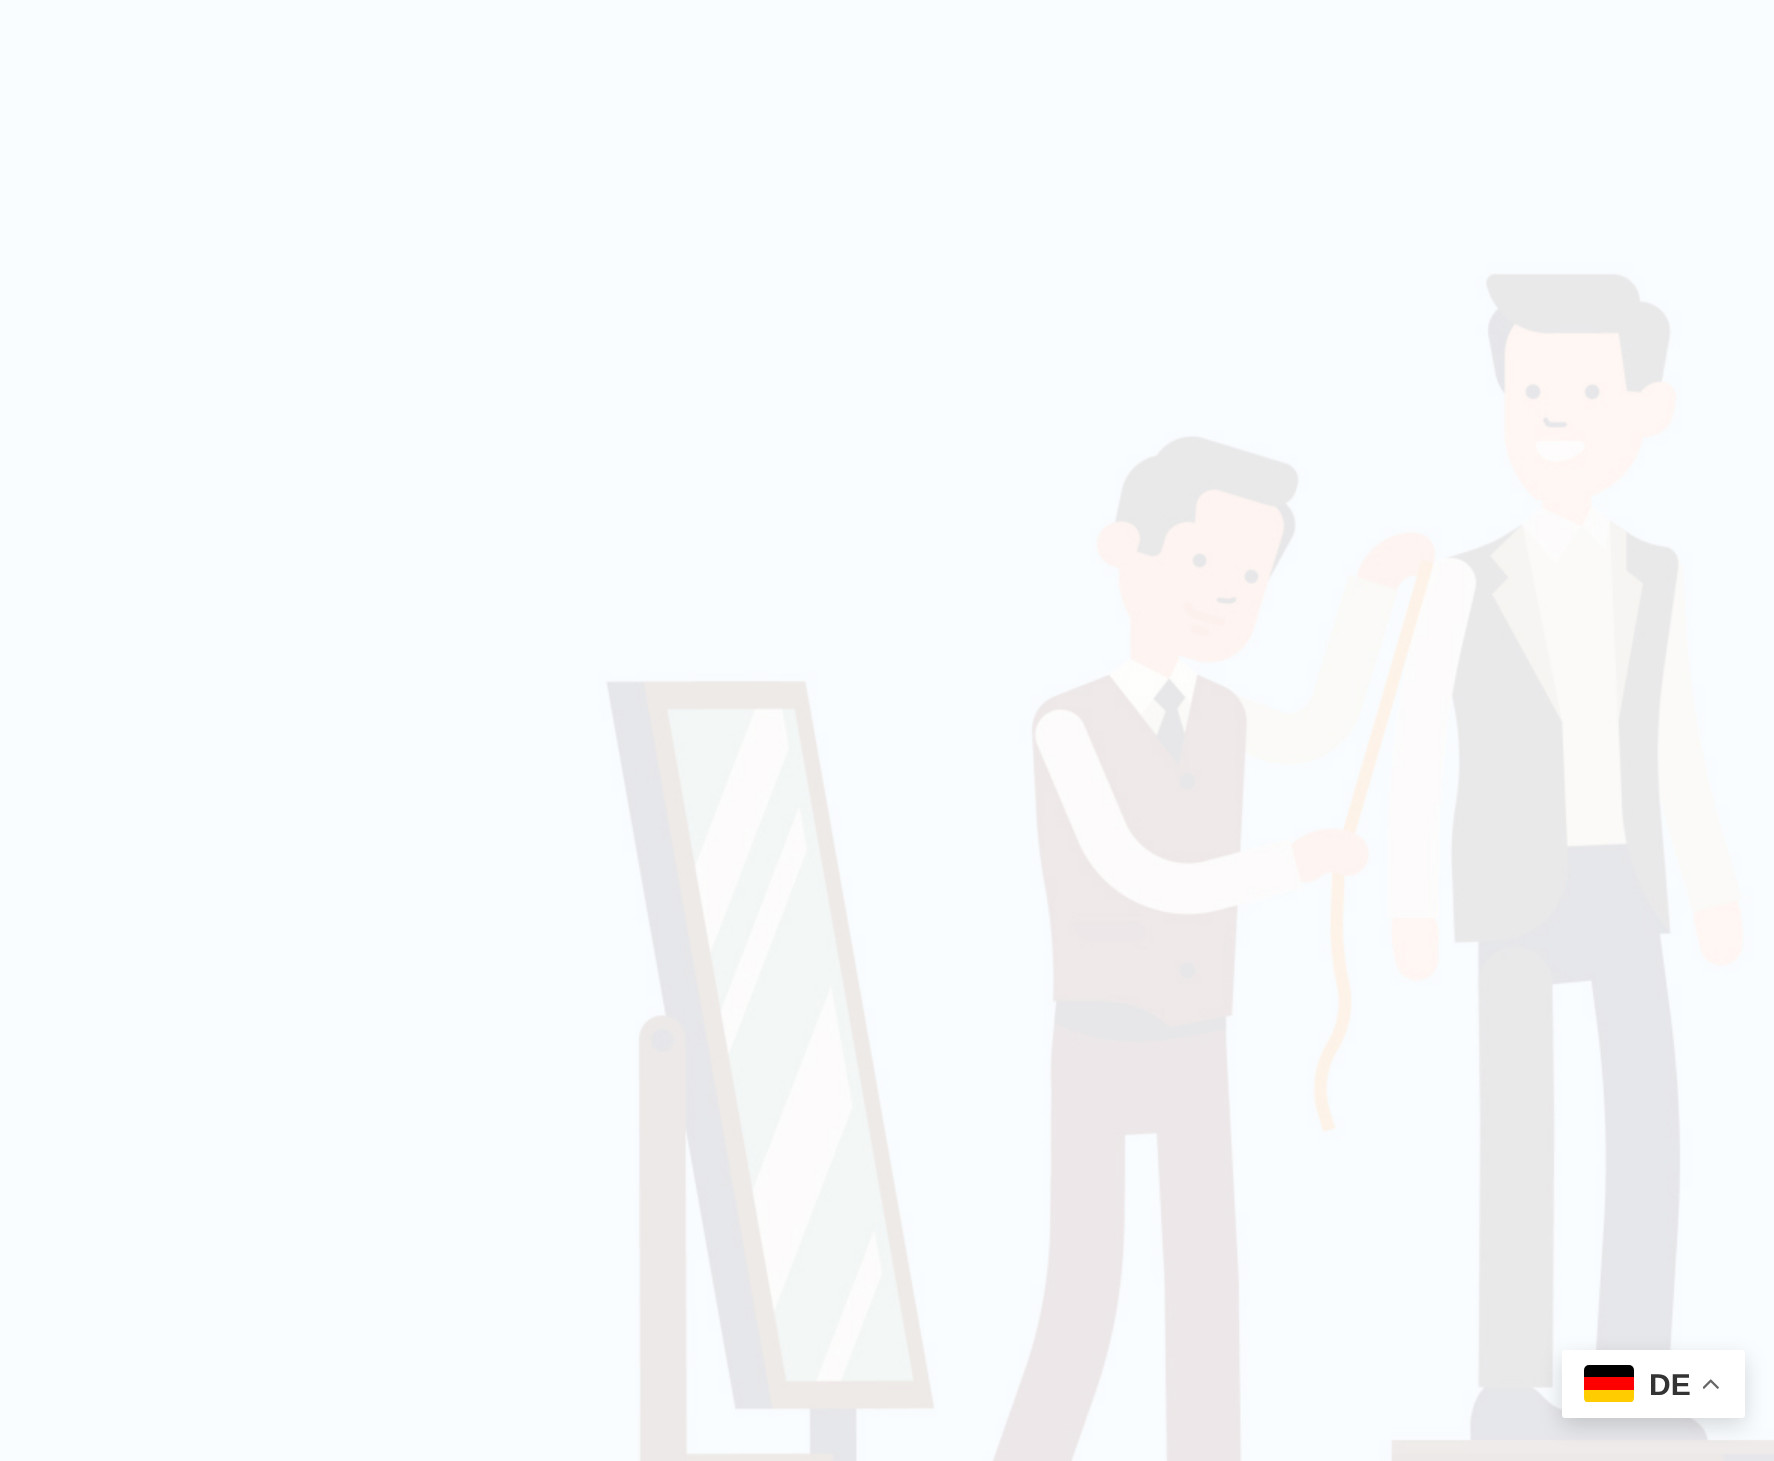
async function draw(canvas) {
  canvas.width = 1774
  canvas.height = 1461
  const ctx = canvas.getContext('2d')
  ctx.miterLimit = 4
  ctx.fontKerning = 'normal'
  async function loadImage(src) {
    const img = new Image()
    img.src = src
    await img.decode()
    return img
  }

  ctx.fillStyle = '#fff'
  ctx.fillRect(0, 0, 1774, 1461)
  ctx.drawImage(await loadImage('image0.png'), 0, 0, 1774, 1461)
  ctx.fillStyle = '#00000026'
  ctx.filter = 'blur(11px)'
  ctx.beginPath()
  ctx.roundRect(1562, 1358, 183, 67, 3)
  ctx.fill()
  ctx.filter = 'none'
  ctx.fillStyle = '#fff'
  ctx.beginPath()
  ctx.roundRect(1562, 1350, 183, 68, 3)
  ctx.fill()
  ctx.save()
  ctx.beginPath()
  ctx.roundRect(1584, 1365, 50, 38, 5)
  ctx.clip()
  ctx.fillStyle = '#fc0'
  ctx.fillRect(1584, 1390, 50, 12)
  ctx.restore()
  ctx.fillStyle = '#000'
  ctx.beginPath()
  ctx.roundRect(1584, 1365, 50, 12, [5, 5, 0, 0])
  ctx.fill()
  ctx.fillStyle = '#f00'
  ctx.fillRect(1584, 1377, 50, 13)
  ctx.font = 'bold 30px Liberation Sans'
  ctx.fillStyle = '#333'
  ctx.fillText('DE', 1649, 1395)
  ctx.drawImage(await loadImage('image1.png'), 1703, 1379, 16, 10)
}

draw(document.querySelector('canvas'))
